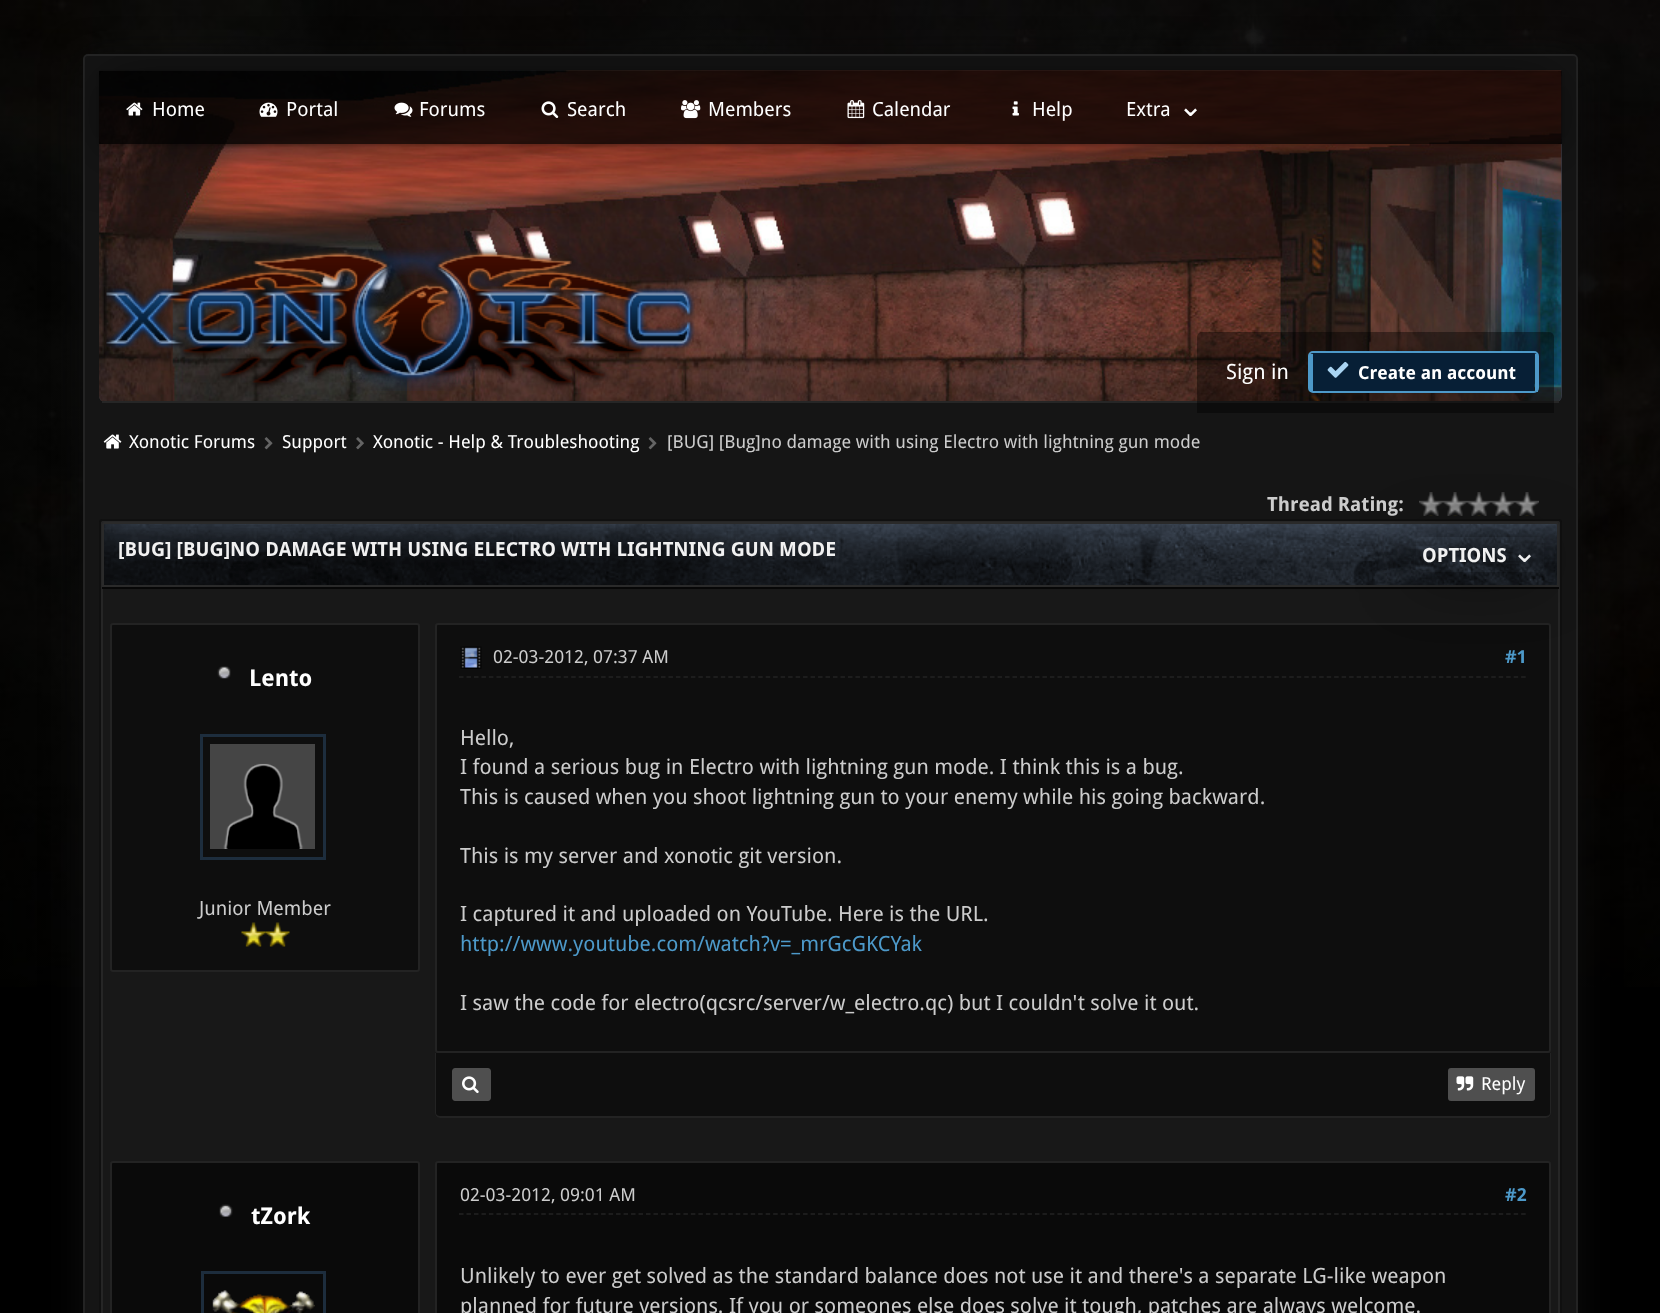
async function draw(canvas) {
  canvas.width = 1660
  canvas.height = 1313
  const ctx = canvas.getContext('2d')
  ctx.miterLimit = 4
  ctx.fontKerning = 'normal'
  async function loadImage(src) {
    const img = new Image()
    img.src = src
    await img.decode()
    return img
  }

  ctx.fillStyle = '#000'
  ctx.fillRect(0, 0, 1660, 1313)
  ctx.drawImage(await loadImage('image0.png'), 0, 0, 1660, 987)
  ctx.fillStyle = '#0d0d0d'
  ctx.filter = 'blur(19px)'
  ctx.beginPath()
  ctx.roundRect(83, 62, 1495, 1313, 5)
  ctx.fill()
  ctx.filter = 'none'
  ctx.fillStyle = '#151515'
  ctx.beginPath()
  ctx.roundRect(84, 56, 1493, 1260, 3)
  ctx.fill()
  ctx.beginPath()
  ctx.roundRect(84, 55, 1493, 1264, 4)
  ctx.strokeStyle = '#232323'
  ctx.lineWidth = 2
  ctx.stroke()
  ctx.fillStyle = '#393b47'
  ctx.beginPath()
  ctx.roundRect(99, 71, 1463, 331, [0, 0, 6, 6])
  ctx.fill()
  ctx.drawImage(await loadImage('image8.png'), 99, 70, 1463, 331)
  ctx.fillStyle = '#000000cc'
  ctx.fillRect(99, 71, 1463, 73)
  ctx.save()
  ctx.beginPath()
  ctx.moveTo(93, 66)
  ctx.lineTo(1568, 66)
  ctx.lineTo(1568, 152)
  ctx.lineTo(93, 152)
  ctx.closePath()
  ctx.moveTo(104, 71)
  ctx.lineTo(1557, 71)
  ctx.bezierCurveTo(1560, 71, 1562, 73, 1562, 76)
  ctx.lineTo(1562, 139)
  ctx.bezierCurveTo(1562, 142, 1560, 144, 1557, 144)
  ctx.lineTo(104, 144)
  ctx.bezierCurveTo(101, 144, 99, 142, 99, 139)
  ctx.lineTo(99, 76)
  ctx.bezierCurveTo(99, 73, 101, 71, 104, 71)
  ctx.closePath()
  ctx.clip('evenodd')
  ctx.fillStyle = '#00000033'
  ctx.filter = 'blur(1.5px)'
  ctx.beginPath()
  ctx.roundRect(99, 72, 1463, 74, 5)
  ctx.fill()
  ctx.filter = 'none'
  ctx.restore()
  ctx.save()
  ctx.beginPath()
  ctx.roundRect(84, 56, 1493, 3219, 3)
  ctx.clip()
  ctx.beginPath()
  ctx.moveTo(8, 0)
  ctx.lineTo(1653, 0)
  ctx.lineTo(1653, 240)
  ctx.lineTo(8, 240)
  ctx.closePath()
  ctx.moveTo(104, 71)
  ctx.lineTo(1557, 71)
  ctx.bezierCurveTo(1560, 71, 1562, 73, 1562, 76)
  ctx.lineTo(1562, 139)
  ctx.bezierCurveTo(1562, 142, 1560, 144, 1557, 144)
  ctx.lineTo(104, 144)
  ctx.bezierCurveTo(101, 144, 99, 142, 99, 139)
  ctx.lineTo(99, 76)
  ctx.bezierCurveTo(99, 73, 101, 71, 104, 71)
  ctx.closePath()
  ctx.clip('evenodd')
  ctx.fillStyle = '#00000080'
  ctx.filter = 'blur(30px)'
  ctx.beginPath()
  ctx.roundRect(99, 75, 1463, 74, 5)
  ctx.fill()
  ctx.filter = 'none'
  ctx.restore()
  ctx.drawImage(await loadImage('image1.png'), 126, 102, 17, 14)
  ctx.font = '19.5px Droid Sans'
  ctx.fillStyle = '#fff'
  ctx.fillText('Home', 152, 116)
  ctx.drawImage(await loadImage('image2.png'), 259, 102, 19, 15)
  ctx.fillText('Portal', 286, 116)
  ctx.drawImage(await loadImage('image3.png'), 394, 102, 19, 15)
  ctx.fillText('Forums', 419, 116)
  ctx.drawImage(await loadImage('image4.png'), 541, 101, 18, 17)
  ctx.fillText('Search', 567, 116)
  ctx.drawImage(await loadImage('image5.png'), 681, 100, 20, 19)
  ctx.fillText('Members', 708, 116)
  ctx.drawImage(await loadImage('image6.png'), 847, 100, 18, 19)
  ctx.fillText('Calendar', 872, 116)
  ctx.drawImage(await loadImage('image7.png'), 1012, 101, 7, 15)
  ctx.fillText('Help', 1032, 116)
  ctx.fillText('Extra', 1126, 116)
  ctx.font = '30px DejaVu Sans'
  ctx.fillText('⌄', 1178, 116)
  ctx.fillStyle = '#262626'
  ctx.fillRect(102, 401, 1457, 2)
  ctx.drawImage(await loadImage('image9.png'), 106, 247, 589, 144)
  ctx.fillStyle = '#00000066'
  ctx.beginPath()
  ctx.roundRect(1197, 332, 357, 81, [5, 5, 0, 0])
  ctx.fill()
  ctx.font = '21px Droid Sans'
  ctx.fillStyle = '#fff'
  ctx.fillText('Sign in', 1226, 379)
  ctx.fillStyle = '#071f36'
  ctx.fillRect(1312, 353, 222, 38)
  ctx.beginPath()
  ctx.roundRect(1309, 352, 229, 40, 4)
  ctx.strokeStyle = '#4d99c9'
  ctx.stroke()
  ctx.fillStyle = '#4d99c9'
  ctx.fillRect(1535, 354, 3, 38)
  ctx.fillRect(1310, 354, 3, 38)
  ctx.drawImage(await loadImage('image10.png'), 1327, 361, 22, 17)
  ctx.font = 'bold 18px Droid Sans'
  ctx.fillStyle = '#fff'
  ctx.fillText('Create an account', 1358, 379)
  ctx.drawImage(await loadImage('image11.png'), 103, 434, 19, 15)
  ctx.font = '18px Droid Sans'
  ctx.fillText('Xonotic Forums', 129, 448)
  ctx.drawImage(await loadImage('image12.png'), 264, 437, 9, 13)
  ctx.fillText('Support', 282, 448)
  ctx.drawImage(await loadImage('image13.png'), 356, 437, 8, 13)
  ctx.fillText('Xonotic - Help & Troubleshooting', 373, 448)
  ctx.drawImage(await loadImage('image12.png'), 648, 437, 9, 13)
  ctx.fillStyle = '#ccc'
  ctx.fillText('[BUG] [Bug]no damage with using Electro with lightning gun mode', 667, 448)
  ctx.font = 'bold 19.5px Droid Sans'
  ctx.fillText('Thread Rating:', 1267, 511)
  ctx.drawImage(await loadImage('image14.png'), 1419, 492, 120, 24)
  ctx.fillStyle = '#181818'
  ctx.beginPath()
  ctx.roundRect(102, 522, 1457, 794, 0.5)
  ctx.fill()
  ctx.strokeStyle = '#262626'
  ctx.stroke()
  ctx.beginPath()
  ctx.roundRect(100, 520, 1461, 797, 2)
  ctx.strokeStyle = '#101010'
  ctx.stroke()
  ctx.drawImage(await loadImage('image15.png'), 102, 522, 1457, 63)
  ctx.beginPath()
  ctx.roundRect(103, 523, 1455, 63, [2, 2, 0, 0])
  ctx.strokeStyle = '#2a2a2a'
  ctx.stroke()
  ctx.fillStyle = '#070707'
  ctx.fillRect(102, 587, 1457, 2)
  ctx.fillStyle = '#f1f1f1'
  ctx.fillText('[BUG] [BUG]NO DAMAGE WITH USING ELECTRO WITH LIGHTNING GUN MODE', 118, 556)
  ctx.fillStyle = '#0e0e0e'
  ctx.beginPath()
  ctx.roundRect(436, 624, 1114, 428, 2)
  ctx.fill()
  ctx.strokeStyle = '#232323'
  ctx.stroke()
  ctx.save()
  ctx.beginPath()
  ctx.roundRect(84, 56, 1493, 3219, 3)
  ctx.clip()
  ctx.beginPath()
  ctx.moveTo(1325, 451)
  ctx.lineTo(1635, 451)
  ctx.lineTo(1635, 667)
  ctx.lineTo(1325, 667)
  ctx.closePath()
  ctx.moveTo(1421, 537)
  ctx.lineTo(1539, 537)
  ctx.bezierCurveTo(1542, 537, 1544, 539, 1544, 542)
  ctx.lineTo(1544, 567)
  ctx.bezierCurveTo(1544, 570, 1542, 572, 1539, 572)
  ctx.lineTo(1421, 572)
  ctx.bezierCurveTo(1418, 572, 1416, 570, 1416, 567)
  ctx.lineTo(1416, 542)
  ctx.bezierCurveTo(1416, 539, 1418, 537, 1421, 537)
  ctx.closePath()
  ctx.clip('evenodd')
  ctx.fillStyle = '#00000080'
  ctx.filter = 'blur(30px)'
  ctx.beginPath()
  ctx.roundRect(1416, 542, 128, 34, 5)
  ctx.fill()
  ctx.filter = 'none'
  ctx.restore()
  ctx.fillStyle = '#f1f1f1'
  ctx.fillText('OPTIONS', 1422, 562)
  ctx.font = '30px DejaVu Sans'
  ctx.fillText('⌄', 1512, 562)
  ctx.fillStyle = '#0e0e0e'
  ctx.beginPath()
  ctx.roundRect(111, 624, 308, 347, 2)
  ctx.fill()
  ctx.stroke()
  ctx.drawImage(await loadImage('image16.png'), 217, 666, 14, 13)
  ctx.font = 'bold 23px Droid Sans'
  ctx.fillStyle = '#fff'
  ctx.fillText('Lento', 249, 686)
  ctx.strokeStyle = '#1d2d3d'
  ctx.lineWidth = 3
  ctx.strokeRect(201.5, 735.5, 123, 123)
  ctx.drawImage(await loadImage('image17.png'), 210, 744, 105, 105)
  ctx.font = '19.5px Droid Sans'
  ctx.fillStyle = '#ccc'
  ctx.fillText('Junior Member', 199, 915)
  ctx.drawImage(await loadImage('image18.png'), 241, 922, 25, 25)
  ctx.drawImage(await loadImage('image19.png'), 265, 922, 25, 25)
  ctx.beginPath()
  ctx.moveTo(459, 677)
  ctx.lineTo(1527, 677)
  ctx.strokeStyle = '#232323'
  ctx.lineWidth = 1.5
  ctx.setLineDash([4.5, 2.98])
  ctx.stroke()
  ctx.drawImage(await loadImage('image20.png'), 460, 646, 22, 23)
  ctx.font = '18px Droid Sans'
  ctx.fillText('02-03-2012, 07:37 AM', 493, 663)
  ctx.font = 'bold 18px Droid Sans'
  ctx.fillStyle = '#4d99c9'
  ctx.fillText('#1', 1505, 663)
  ctx.font = '21px Droid Sans'
  ctx.fillStyle = '#ccc'
  ctx.fillText('Hello,', 460, 745)
  ctx.fillText('I found a serious bug in Electro with lightning gun mode. I think this is a bug.', 460, 774)
  ctx.fillText('This is caused when you shoot lightning gun to your enemy while his going backward.', 460, 804)
  ctx.fillText('This is my server and xonotic git version.', 460, 863)
  ctx.fillText('I captured it and uploaded on YouTube. Here is the URL.', 460, 921)
  ctx.fillStyle = '#4d99c9'
  ctx.fillText('http://www.youtube.com/watch?v=_mrGcGKCYak', 460, 951)
  ctx.fillStyle = '#ccc'
  ctx.fillText('I saw the code for electro(qcsrc/server/w_electro.qc) but I couldn\'t solve it out.', 460, 1010)
  ctx.fillStyle = '#0e0e0e'
  ctx.beginPath()
  ctx.roundRect(435, 1053, 1116, 65, [0, 0, 5, 5])
  ctx.fill()
  ctx.fillStyle = '#232323'
  ctx.beginPath()
  ctx.moveTo(435, 1053)
  ctx.lineTo(1551, 1053)
  ctx.lineTo(1551, 1113)
  ctx.bezierCurveTo(1551, 1115, 1549, 1118, 1546, 1118)
  ctx.lineTo(440, 1118)
  ctx.bezierCurveTo(437, 1118, 435, 1115, 435, 1113)
  ctx.closePath()
  ctx.moveTo(436, 1053)
  ctx.lineTo(1550, 1053)
  ctx.lineTo(1550, 1113)
  ctx.bezierCurveTo(1550, 1115, 1548, 1116, 1546, 1116)
  ctx.lineTo(440, 1116)
  ctx.bezierCurveTo(438, 1116, 436, 1115, 436, 1113)
  ctx.closePath()
  ctx.fill('evenodd')
  ctx.fillStyle = '#4f4f4f'
  ctx.beginPath()
  ctx.moveTo(455, 1068)
  ctx.lineTo(488, 1068)
  ctx.bezierCurveTo(489.5, 1068, 491, 1069.5, 491, 1071)
  ctx.lineTo(491, 1098)
  ctx.bezierCurveTo(491, 1099.5, 489.5, 1101, 488, 1101)
  ctx.lineTo(455, 1101)
  ctx.bezierCurveTo(453.5, 1101, 452, 1099.5, 452, 1098)
  ctx.lineTo(452, 1071)
  ctx.bezierCurveTo(452, 1069.5, 453.5, 1068, 455, 1068)
  ctx.closePath()
  ctx.fill()
  ctx.drawImage(await loadImage('image21.png'), 462, 1076, 17, 18)
  ctx.beginPath()
  ctx.moveTo(1451, 1068)
  ctx.lineTo(1532, 1068)
  ctx.bezierCurveTo(1534, 1068, 1535, 1069, 1535, 1071)
  ctx.lineTo(1535, 1098)
  ctx.bezierCurveTo(1535, 1100, 1534, 1101, 1532, 1101)
  ctx.lineTo(1451, 1101)
  ctx.bezierCurveTo(1449, 1101, 1448, 1100, 1448, 1098)
  ctx.lineTo(1448, 1071)
  ctx.bezierCurveTo(1448, 1069, 1449, 1068, 1451, 1068)
  ctx.closePath()
  ctx.fill()
  ctx.drawImage(await loadImage('image22.png'), 1456, 1076, 18, 15)
  ctx.font = '18px Droid Sans'
  ctx.fillStyle = '#fff'
  ctx.fillText('Reply', 1481, 1090)
  ctx.fillStyle = '#0a0a0a'
  ctx.beginPath()
  ctx.roundRect(111, 1162, 308, 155, 2)
  ctx.fill()
  ctx.lineWidth = 2
  ctx.setLineDash([])
  ctx.stroke()
  ctx.drawImage(await loadImage('image23.png'), 219, 1204, 14, 13)
  ctx.font = 'bold 23px Droid Sans'
  ctx.fillStyle = '#fff'
  ctx.fillText('tZork', 251, 1224)
  ctx.strokeStyle = '#1d2d3d'
  ctx.lineWidth = 3
  ctx.strokeRect(202.5, 1272.5, 122, 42)
  ctx.drawImage(await loadImage('image24.png'), 212, 1290, 103, 23)
  ctx.fillStyle = '#0a0a0a'
  ctx.beginPath()
  ctx.roundRect(436, 1162, 1114, 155, 2)
  ctx.fill()
  ctx.strokeStyle = '#232323'
  ctx.lineWidth = 2
  ctx.stroke()
  ctx.beginPath()
  ctx.moveTo(459, 1214)
  ctx.lineTo(1527, 1214)
  ctx.lineWidth = 1.5
  ctx.setLineDash([4.5, 2.98])
  ctx.stroke()
  ctx.font = '18px Droid Sans'
  ctx.fillStyle = '#ccc'
  ctx.fillText('02-03-2012, 09:01 AM', 460, 1201)
  ctx.font = 'bold 18px Droid Sans'
  ctx.fillStyle = '#4d99c9'
  ctx.fillText('#2', 1505, 1201)
  ctx.font = '21px Droid Sans'
  ctx.fillStyle = '#ccc'
  ctx.fillText('Unlikely to ever get solved as the standard balance does not use it and there\'s a separate LG-like weapon', 460, 1283)
  ctx.fillText('planned for future versions. If you or someones else does solve it tough, patches are always welcome.', 460, 1313)
}

draw(document.querySelector('canvas'))
